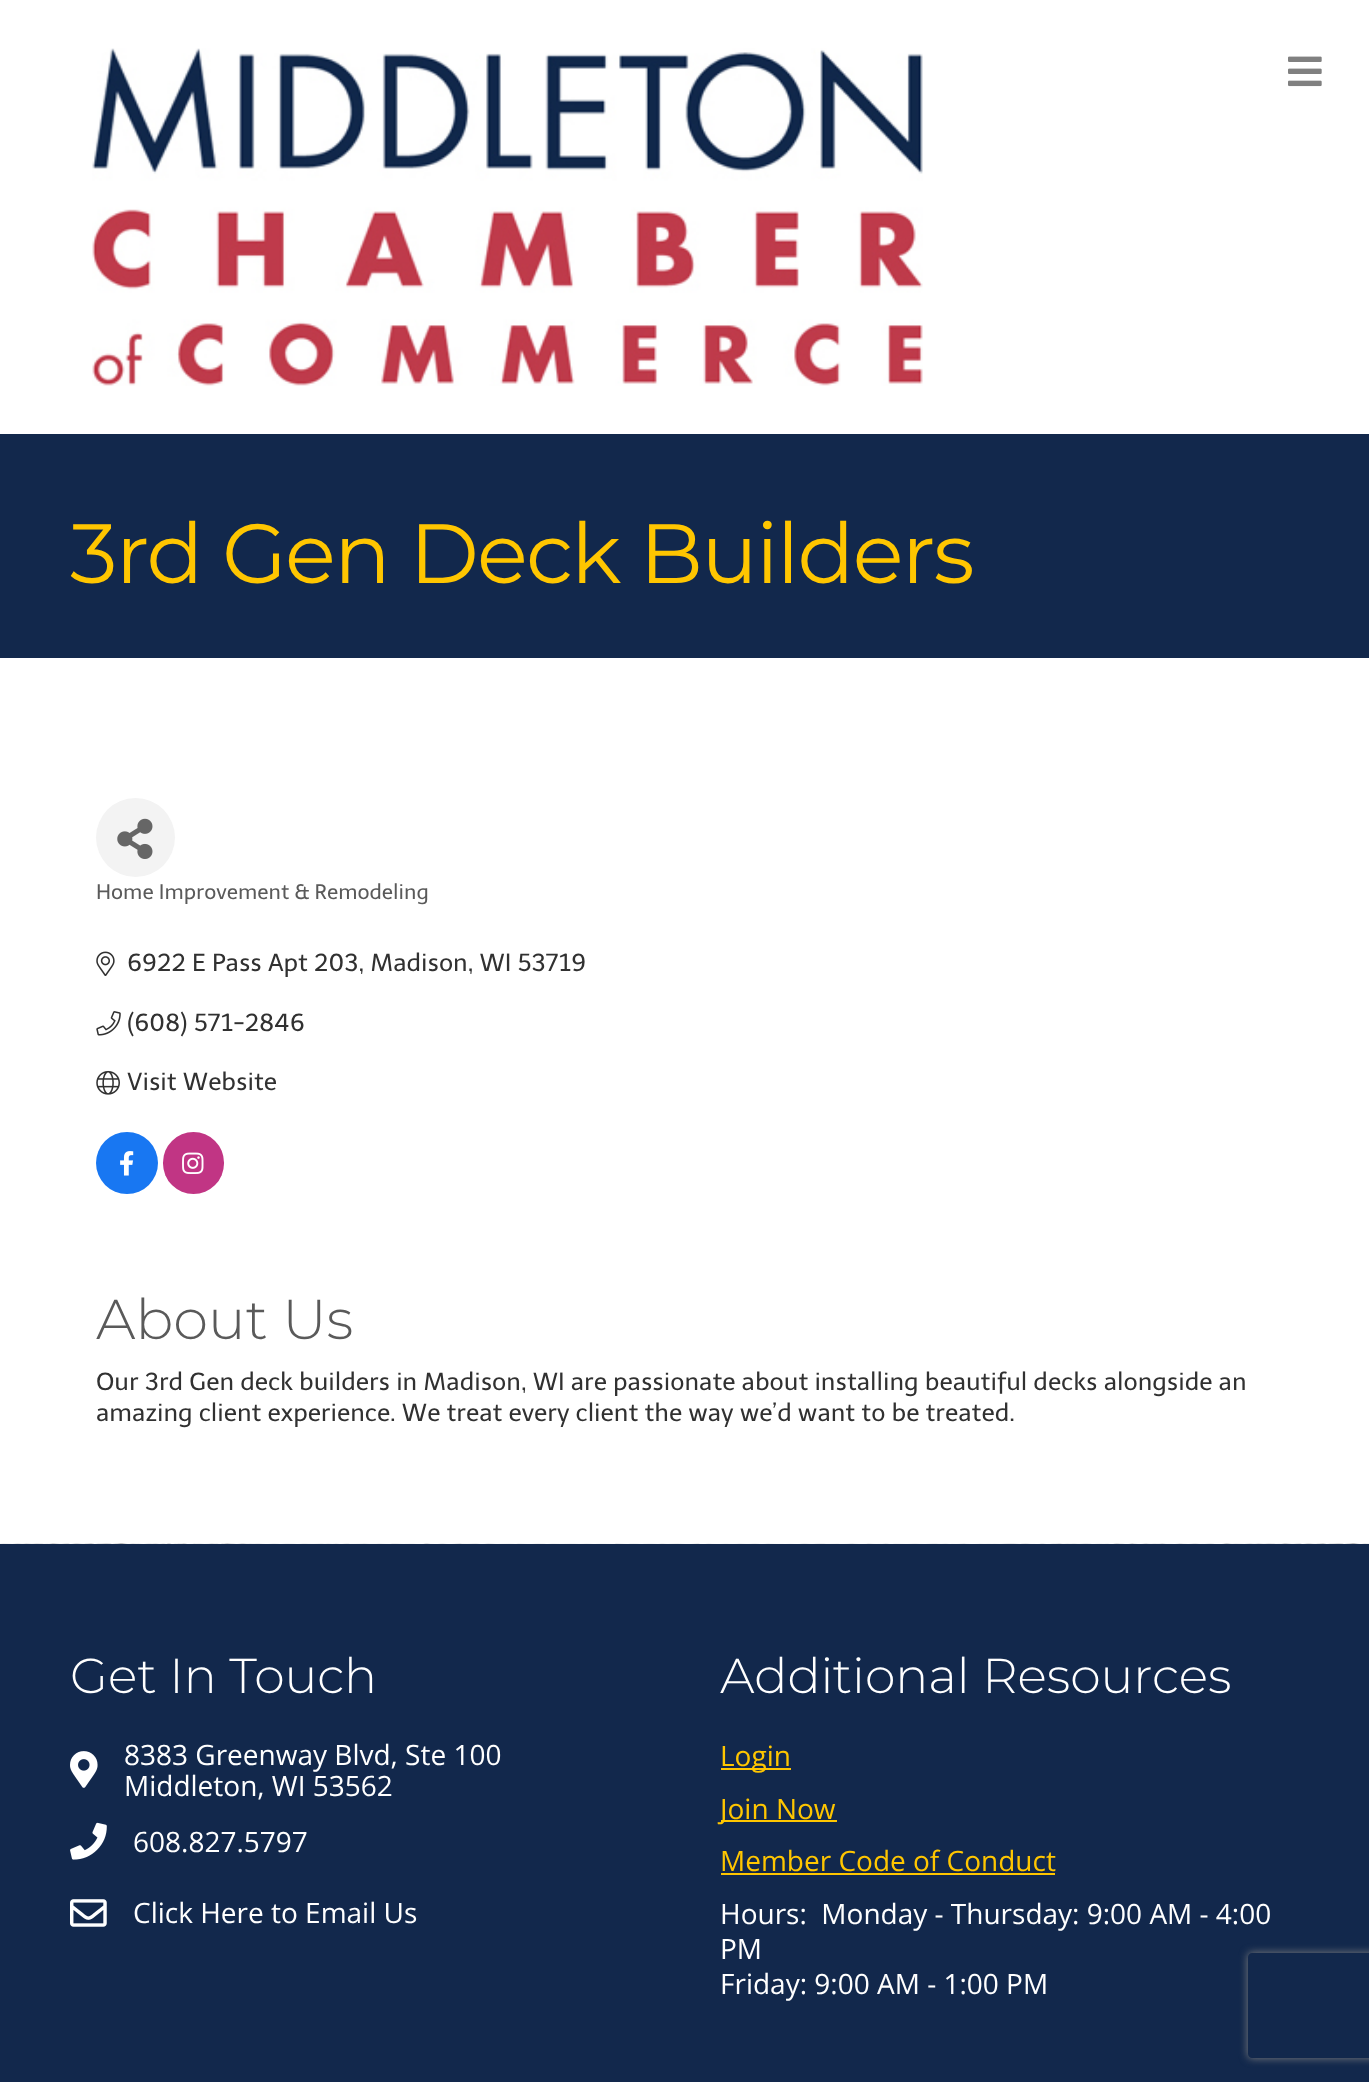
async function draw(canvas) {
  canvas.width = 1369
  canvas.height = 2082
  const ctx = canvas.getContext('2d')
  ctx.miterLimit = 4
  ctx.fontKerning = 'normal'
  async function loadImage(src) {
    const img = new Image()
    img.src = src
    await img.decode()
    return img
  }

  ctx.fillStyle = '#fff'
  ctx.fillRect(0, 0, 1369, 2082)
  ctx.drawImage(await loadImage('image0.png'), 92, 48, 831, 338)
  ctx.drawImage(await loadImage('image1.png'), 1288, 56, 34, 31)
  ctx.fillStyle = '#12284c'
  ctx.fillRect(0, 434, 1369, 224)
  ctx.letterSpacing = '-1.75px'
  ctx.font = '84px Montserrat'
  ctx.fillStyle = '#ffc600'
  ctx.fillText('3rd Gen Deck Builders', 70, 583)
  ctx.fillStyle = '#f3f3f3'
  ctx.beginPath()
  ctx.arc(135.5, 837.5, 39.5, 0, 2 * Math.PI)
  ctx.fill()
  ctx.drawImage(await loadImage('image2.png'), 117, 818, 36, 41)
  ctx.letterSpacing = '0px'
  ctx.font = '20.8px Telex'
  ctx.fillStyle = '#5a5a5a'
  ctx.fillText('Home Improvement & Remodeling', 96, 899)
  ctx.drawImage(await loadImage('image3.png'), 96, 951, 19, 25)
  ctx.font = '24.5px Telex'
  ctx.fillStyle = '#313131'
  ctx.fillText('6922 E Pass Apt 203, Madison, WI 53719', 127, 971)
  ctx.drawImage(await loadImage('image4.png'), 96, 1011, 25, 25)
  ctx.fillText('(608) 571-2846', 127, 1031)
  ctx.drawImage(await loadImage('image5.png'), 96, 1070, 24, 25)
  ctx.fillText('Visit Website', 127, 1090)
  ctx.fillStyle = '#1877f2'
  ctx.beginPath()
  ctx.arc(127, 1163, 31, 0, 2 * Math.PI)
  ctx.fill()
  ctx.drawImage(await loadImage('image6.png'), 120, 1151, 14, 25)
  ctx.fillStyle = '#c13584'
  ctx.beginPath()
  ctx.roundRect(163, 1132, 61, 62, 30.5)
  ctx.fill()
  ctx.drawImage(await loadImage('image7.png'), 182, 1152, 22, 22)
  ctx.font = '300 56px Montserrat'
  ctx.fillStyle = '#5a5a5a'
  ctx.fillText('About Us', 96, 1339)
  ctx.font = '24.5px Telex'
  ctx.fillStyle = '#313131'
  ctx.fillText('Our 3rd Gen deck builders in Madison, WI are passionate about installing beautiful decks alongside an', 96, 1390)
  ctx.fillText('amazing client experience. We treat every client the way we’d want to be treated.', 96, 1421)
  ctx.drawImage(await loadImage('image8.png'), 0, 1543, 1369, 1)
  ctx.fillStyle = '#12284c'
  ctx.fillRect(0, 1544, 1369, 538)
  ctx.font = '300 49px Montserrat'
  ctx.fillStyle = '#fff'
  ctx.fillText('Get In Touch', 70, 1693)
  ctx.drawImage(await loadImage('image9.png'), 70, 1751, 28, 37)
  ctx.font = '28px Open Sans'
  ctx.fillText('8383 Greenway Blvd, Ste 100', 124, 1765)
  ctx.fillText('Middleton, WI 53562', 124, 1796)
  ctx.drawImage(await loadImage('image10.png'), 70, 1822, 37, 38)
  ctx.fillText('608.827.5797', 133, 1852)
  ctx.drawImage(await loadImage('image11.png'), 70, 1899, 37, 28)
  ctx.fillText('Click Here to Email Us', 133, 1923)
  ctx.font = '300 49px Montserrat'
  ctx.fillText('Additional Resources', 720, 1693)
  ctx.fillStyle = '#ffc600'
  ctx.fillRect(721, 1768, 70, 2)
  ctx.font = '28px Open Sans'
  ctx.fillText('Login', 720, 1766)
  ctx.fillRect(721, 1820, 116, 2)
  ctx.fillText('Join Now', 720, 1819)
  ctx.fillText('Member Code of Conduct', 720, 1871)
  ctx.fillRect(721, 1873, 334, 2)
  ctx.fillStyle = '#fff'
  ctx.fillText('Hours:  Monday - Thursday: 9:00 AM - 4:00', 720, 1924)
  ctx.fillText('PM', 720, 1959)
  ctx.fillText('Friday: 9:00 AM - 1:00 PM', 720, 1994)
  ctx.save()
  ctx.beginPath()
  ctx.moveTo(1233, 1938)
  ctx.lineTo(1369, 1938)
  ctx.lineTo(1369, 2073)
  ctx.lineTo(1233, 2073)
  ctx.closePath()
  ctx.moveTo(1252, 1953)
  ctx.lineTo(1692, 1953)
  ctx.bezierCurveTo(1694, 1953, 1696, 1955, 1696, 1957)
  ctx.lineTo(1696, 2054)
  ctx.bezierCurveTo(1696, 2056, 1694, 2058, 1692, 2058)
  ctx.lineTo(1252, 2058)
  ctx.bezierCurveTo(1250, 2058, 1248, 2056, 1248, 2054)
  ctx.lineTo(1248, 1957)
  ctx.bezierCurveTo(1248, 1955, 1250, 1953, 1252, 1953)
  ctx.closePath()
  ctx.clip('evenodd')
  ctx.fillStyle = '#808080'
  ctx.filter = 'blur(4.5px)'
  ctx.beginPath()
  ctx.roundRect(1248, 1953, 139, 105, 4)
  ctx.fill()
  ctx.filter = 'none'
  ctx.restore()
}

draw(document.querySelector('canvas'))
